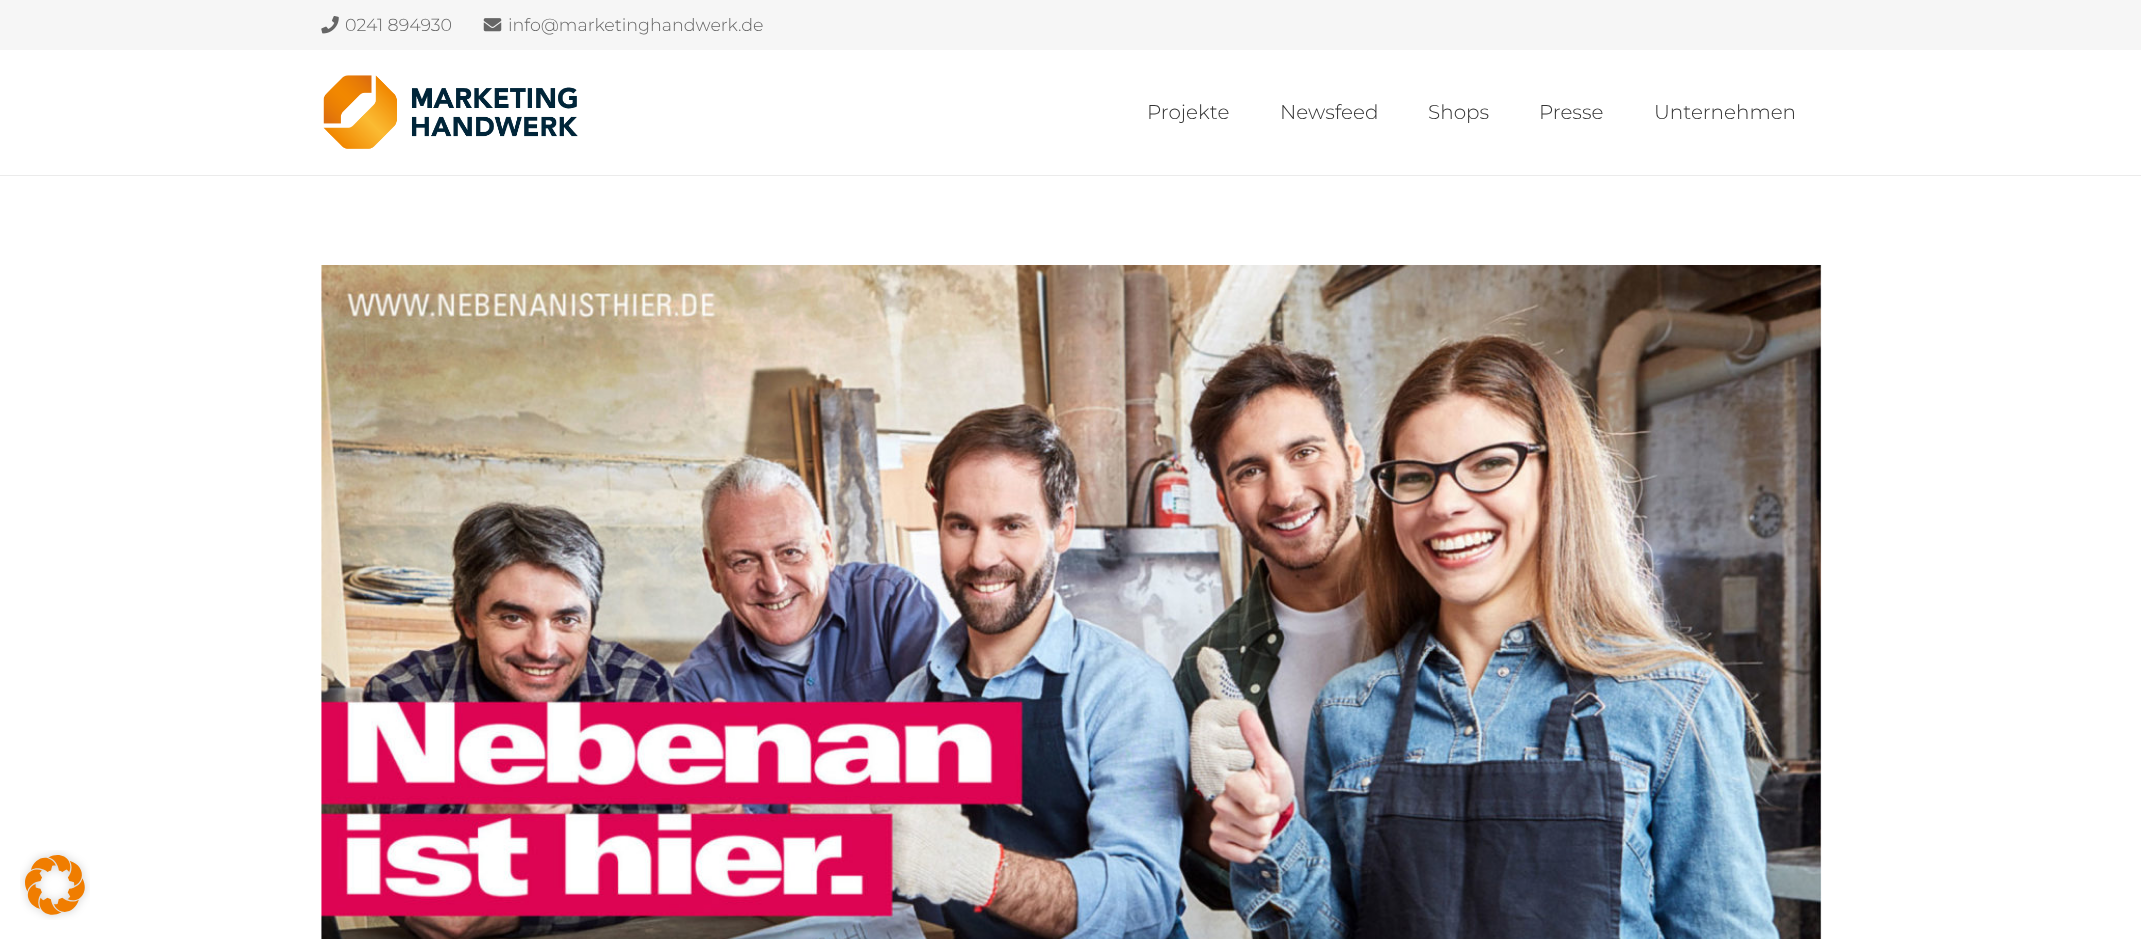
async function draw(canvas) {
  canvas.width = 2141
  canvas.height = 939
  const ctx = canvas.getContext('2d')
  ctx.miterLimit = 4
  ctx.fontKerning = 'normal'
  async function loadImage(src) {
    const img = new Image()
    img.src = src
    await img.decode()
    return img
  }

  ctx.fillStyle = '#fff'
  ctx.fillRect(0, 0, 2141, 939)
  ctx.fillStyle = '#f6f6f6'
  ctx.fillRect(0, 0, 2141, 50)
  ctx.drawImage(await loadImage('image0.png'), 321, 16, 18, 18)
  ctx.font = '100 17.5px Montserrat'
  ctx.fillStyle = '#666'
  ctx.fillText('0241 894930', 345, 31)
  ctx.drawImage(await loadImage('image1.png'), 483, 18, 19, 14)
  ctx.fillText('info@marketinghandwerk.de', 508, 31)
  ctx.fillStyle = '#ebebeb'
  ctx.fillRect(0, 175, 2141, 1)
  ctx.drawImage(await loadImage('image2.png'), 323, 75, 255, 74)
  ctx.font = '100 20px Montserrat'
  ctx.fillStyle = '#333'
  ctx.fillText('Projekte', 1147, 119)
  ctx.fillText('Newsfeed', 1280, 119)
  ctx.fillText('Shops', 1428, 119)
  ctx.fillText('Presse', 1539, 119)
  ctx.fillText('Unternehmen', 1654, 119)
  ctx.drawImage(await loadImage('image3.png'), 321, 265, 1501, 674)
  ctx.drawImage(await loadImage('image4.png'), 20, 850, 70, 70)
}

draw(document.querySelector('canvas'))
